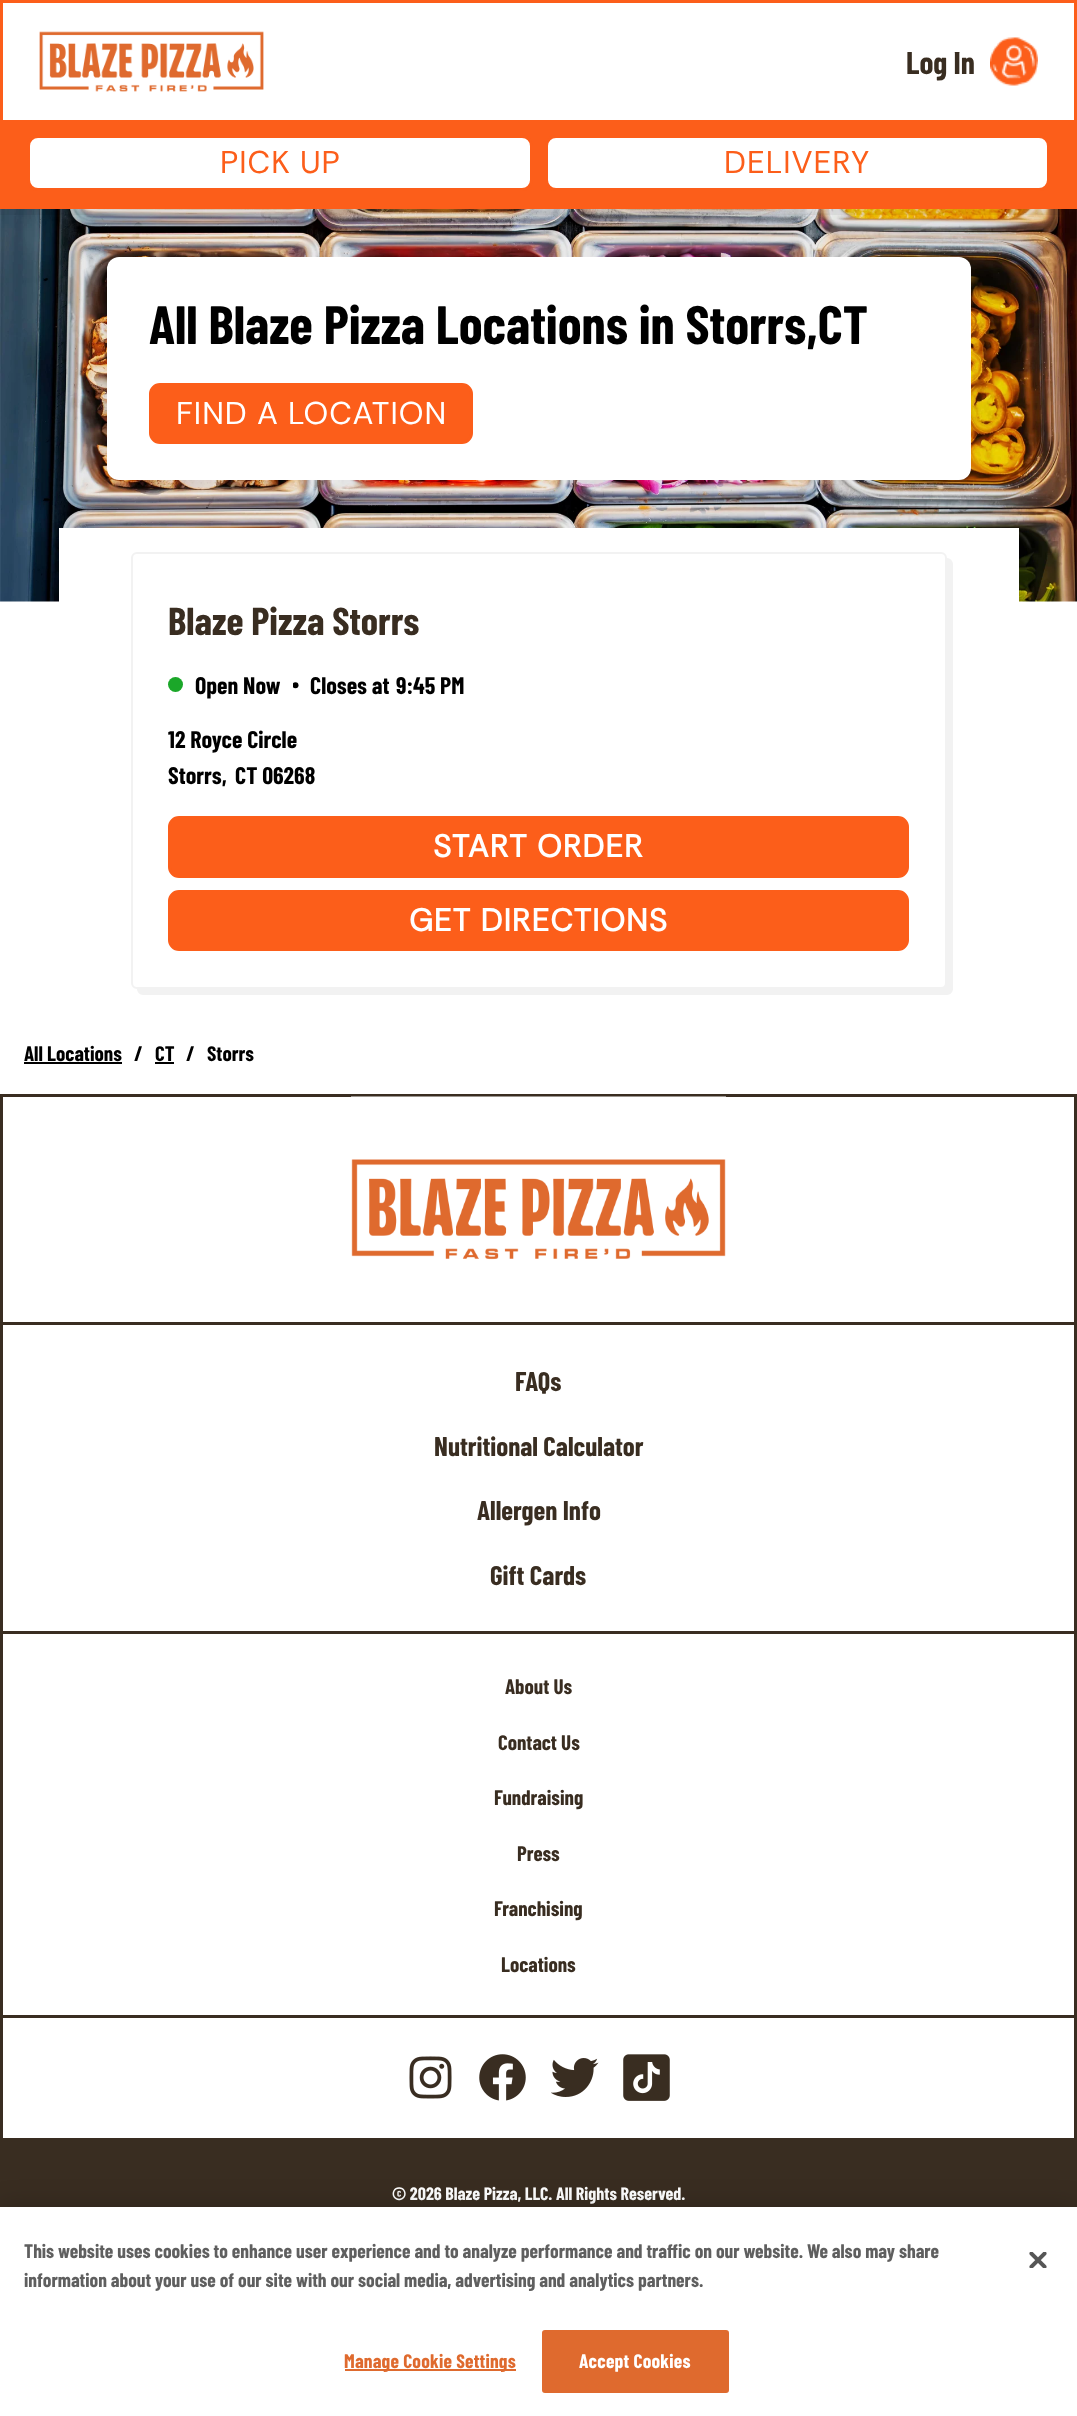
async function draw(canvas) {
  canvas.width = 1077
  canvas.height = 2416
  const ctx = canvas.getContext('2d')
  ctx.miterLimit = 4
  ctx.fontKerning = 'normal'
  async function loadImage(src) {
    const img = new Image()
    img.src = src
    await img.decode()
    return img
  }

  ctx.fillStyle = '#fff'
  ctx.fillRect(0, 0, 1077, 2416)
  ctx.drawImage(await loadImage('image2.png'), 0, 209, 1077, 393)
  ctx.fillStyle = '#0000000d'
  ctx.fillRect(0, 209, 1063, 6)
  ctx.strokeStyle = '#fc5e1a'
  ctx.lineWidth = 3
  ctx.strokeRect(1.5, 1.5, 1074, 206)
  ctx.drawImage(await loadImage('image0.png'), 39, 31, 225, 61)
  ctx.font = 'bold 31.5px Barlow Condensed'
  ctx.fillStyle = '#392d21'
  ctx.fillText('Log In', 906, 74)
  ctx.drawImage(await loadImage('image1.png'), 990, 37, 48, 49)
  ctx.fillStyle = '#fc5e1a'
  ctx.fillRect(3, 120, 1071, 86)
  ctx.fillStyle = '#fff'
  ctx.beginPath()
  ctx.roundRect(28.5, 136.5, 503, 53, 9.5)
  ctx.fill()
  ctx.stroke()
  ctx.letterSpacing = '1px'
  ctx.font = '100 31.5px Rethink Sans'
  ctx.fillStyle = '#fc5e1a'
  ctx.fillText('PICK UP', 220, 173)
  ctx.fillStyle = '#fff'
  ctx.beginPath()
  ctx.roundRect(546.5, 136.5, 502, 53, 9.5)
  ctx.fill()
  ctx.stroke()
  ctx.fillStyle = '#fc5e1a'
  ctx.fillText('DELIVERY', 724, 173)
  ctx.fillStyle = '#fff'
  ctx.beginPath()
  ctx.roundRect(107, 257, 864, 223, 12)
  ctx.fill()
  ctx.letterSpacing = '0px'
  ctx.font = 'bold 54px Barlow Condensed'
  ctx.fillStyle = '#000'
  ctx.fillText('All Blaze Pizza Locations in Storrs,CT', 149, 344)
  ctx.fillStyle = '#fc5e1a'
  ctx.beginPath()
  ctx.roundRect(150.5, 384.5, 321, 58, 9.5)
  ctx.fill()
  ctx.stroke()
  ctx.letterSpacing = '1px'
  ctx.font = '100 31.5px Rethink Sans'
  ctx.fillStyle = '#fff'
  ctx.fillText('FIND A LOCATION', 176, 424)
  ctx.fillRect(59, 528, 960, 74)
  ctx.fillStyle = '#f2f2f2'
  ctx.beginPath()
  ctx.moveTo(137, 988)
  ctx.lineTo(137, 989)
  ctx.bezierCurveTo(137, 992, 140, 995, 143, 995)
  ctx.lineTo(947, 995)
  ctx.bezierCurveTo(950, 995, 953, 992, 953, 989)
  ctx.lineTo(953, 564)
  ctx.bezierCurveTo(953, 561, 950, 558, 947, 558)
  ctx.lineTo(946, 558)
  ctx.lineTo(946, 982)
  ctx.bezierCurveTo(946, 986, 944, 988, 940, 988)
  ctx.closePath()
  ctx.fill()
  ctx.fillStyle = '#fff'
  ctx.beginPath()
  ctx.roundRect(132, 553, 814, 435, 5)
  ctx.fill()
  ctx.strokeStyle = '#f2f2f2'
  ctx.lineWidth = 2
  ctx.stroke()
  ctx.letterSpacing = '0px'
  ctx.font = 'bold 39px Barlow Condensed'
  ctx.fillStyle = '#392d21'
  ctx.fillText('Blaze Pizza Storrs', 168, 635)
  ctx.fillStyle = '#1ba729'
  ctx.beginPath()
  ctx.arc(175.5, 684.5, 7.5, 0, 2 * Math.PI)
  ctx.fill()
  ctx.font = 'bold 24px Barlow Condensed'
  ctx.fillStyle = '#000'
  ctx.fillText('Open Now', 195, 694)
  ctx.save()
  ctx.beginPath()
  ctx.rect(293, 681, 6, 8)
  ctx.clip()
  ctx.beginPath()
  ctx.arc(295.5, 685.2, 3, 0, 2 * Math.PI)
  ctx.fill()
  ctx.restore()
  ctx.fillText('Closes at', 310, 694)
  ctx.fillText('9:45 PM', 396, 694)
  ctx.fillText('12 Royce Circle', 168, 748)
  ctx.fillText('Storrs,', 168, 784)
  ctx.fillText('CT 06268', 235, 784)
  ctx.fillStyle = '#fc5e1a'
  ctx.beginPath()
  ctx.roundRect(169.5, 817.5, 738, 59, 9.5)
  ctx.fill()
  ctx.strokeStyle = '#fc5e1a'
  ctx.lineWidth = 3
  ctx.stroke()
  ctx.letterSpacing = '1px'
  ctx.font = 'bold 31.5px Rethink Sans'
  ctx.fillStyle = '#fff'
  ctx.fillText('START ORDER', 433, 857)
  ctx.fillStyle = '#fc5e1a'
  ctx.beginPath()
  ctx.roundRect(169.5, 891.5, 738, 58, 9.5)
  ctx.fill()
  ctx.stroke()
  ctx.fillStyle = '#fff'
  ctx.fillText('GET DIRECTIONS', 409, 931)
  ctx.letterSpacing = '0px'
  ctx.font = 'bold 21px Barlow Condensed'
  ctx.fillStyle = '#000'
  ctx.fillText('All Locations', 24, 1061)
  ctx.fillRect(24, 1062, 98, 2)
  ctx.fillText('/', 134, 1061)
  ctx.fillText('CT', 155, 1061)
  ctx.fillRect(155, 1062, 19, 2)
  ctx.fillText('/', 186, 1061)
  ctx.fillText('Storrs', 207, 1061)
  ctx.strokeStyle = '#392d21'
  ctx.strokeRect(1.5, 1095.5, 1074, 1044)
  ctx.fillStyle = '#392d21'
  ctx.fillRect(3, 1322, 1071, 3)
  ctx.drawImage(await loadImage('image3.png'), 351, 1096, 375, 164)
  ctx.fillRect(3, 1631, 1071, 3)
  ctx.font = 'bold 27px Barlow Condensed'
  ctx.fillText('FAQs', 515, 1391)
  ctx.fillText('Nutritional Calculator', 434, 1456)
  ctx.fillText('Allergen Info', 477, 1520)
  ctx.fillText('Gift Cards', 490, 1585)
  ctx.fillRect(3, 2015, 1071, 3)
  ctx.font = 'bold 21px Barlow Condensed'
  ctx.fillText('About Us', 505, 1694)
  ctx.fillText('Contact Us', 498, 1750)
  ctx.fillText('Fundraising', 494, 1805)
  ctx.fillText('Press', 517, 1861)
  ctx.fillText('Franchising', 494, 1916)
  ctx.fillText('Locations', 501, 1972)
  ctx.drawImage(await loadImage('image4.png'), 409, 2056, 43, 43)
  ctx.drawImage(await loadImage('image5.png'), 479, 2054, 47, 47)
  ctx.drawImage(await loadImage('image6.png'), 551, 2058, 48, 39)
  ctx.drawImage(await loadImage('image7.png'), 623, 2054, 47, 47)
  ctx.fillRect(0, 2141, 1077, 66)
  ctx.font = 'bold 18px Barlow Condensed'
  ctx.fillStyle = '#fff'
  ctx.fillText('© 2026 Blaze Pizza, LLC. All Rights Reserved.', 392, 2200)
  ctx.fillStyle = '#00000033'
  ctx.filter = 'blur(13.5px)'
  ctx.beginPath()
  ctx.rect(0, 2207, 1077, 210)
  ctx.fill()
  ctx.filter = 'none'
  ctx.fillStyle = '#fff'
  ctx.fillRect(0, 2207, 1077, 209)
  ctx.font = 'bold 19.5px Barlow Condensed'
  ctx.fillStyle = '#5f5f5f'
  ctx.fillText('This website uses cookies to enhance user experience and to analyze performance and traffic on our website. We also may share', 24, 2258)
  ctx.fillText('information about your use of our site with our social media, advertising and analytics partners.', 24, 2287)
  ctx.drawImage(await loadImage('image8.png'), 1029, 2252, 18, 16)
  ctx.fillStyle = '#df6a2e'
  ctx.fillRect(345, 2369, 171, 2)
  ctx.letterSpacing = '0.2px'
  ctx.fillText('Manage Cookie Settings', 344, 2368)
  ctx.beginPath()
  ctx.roundRect(543, 2331, 185, 61, 2)
  ctx.fill()
  ctx.strokeStyle = '#df6a2e'
  ctx.lineWidth = 2
  ctx.stroke()
  ctx.fillStyle = '#fff'
  ctx.fillText('Accept Cookies', 579, 2368)
}

draw(document.querySelector('canvas'))
